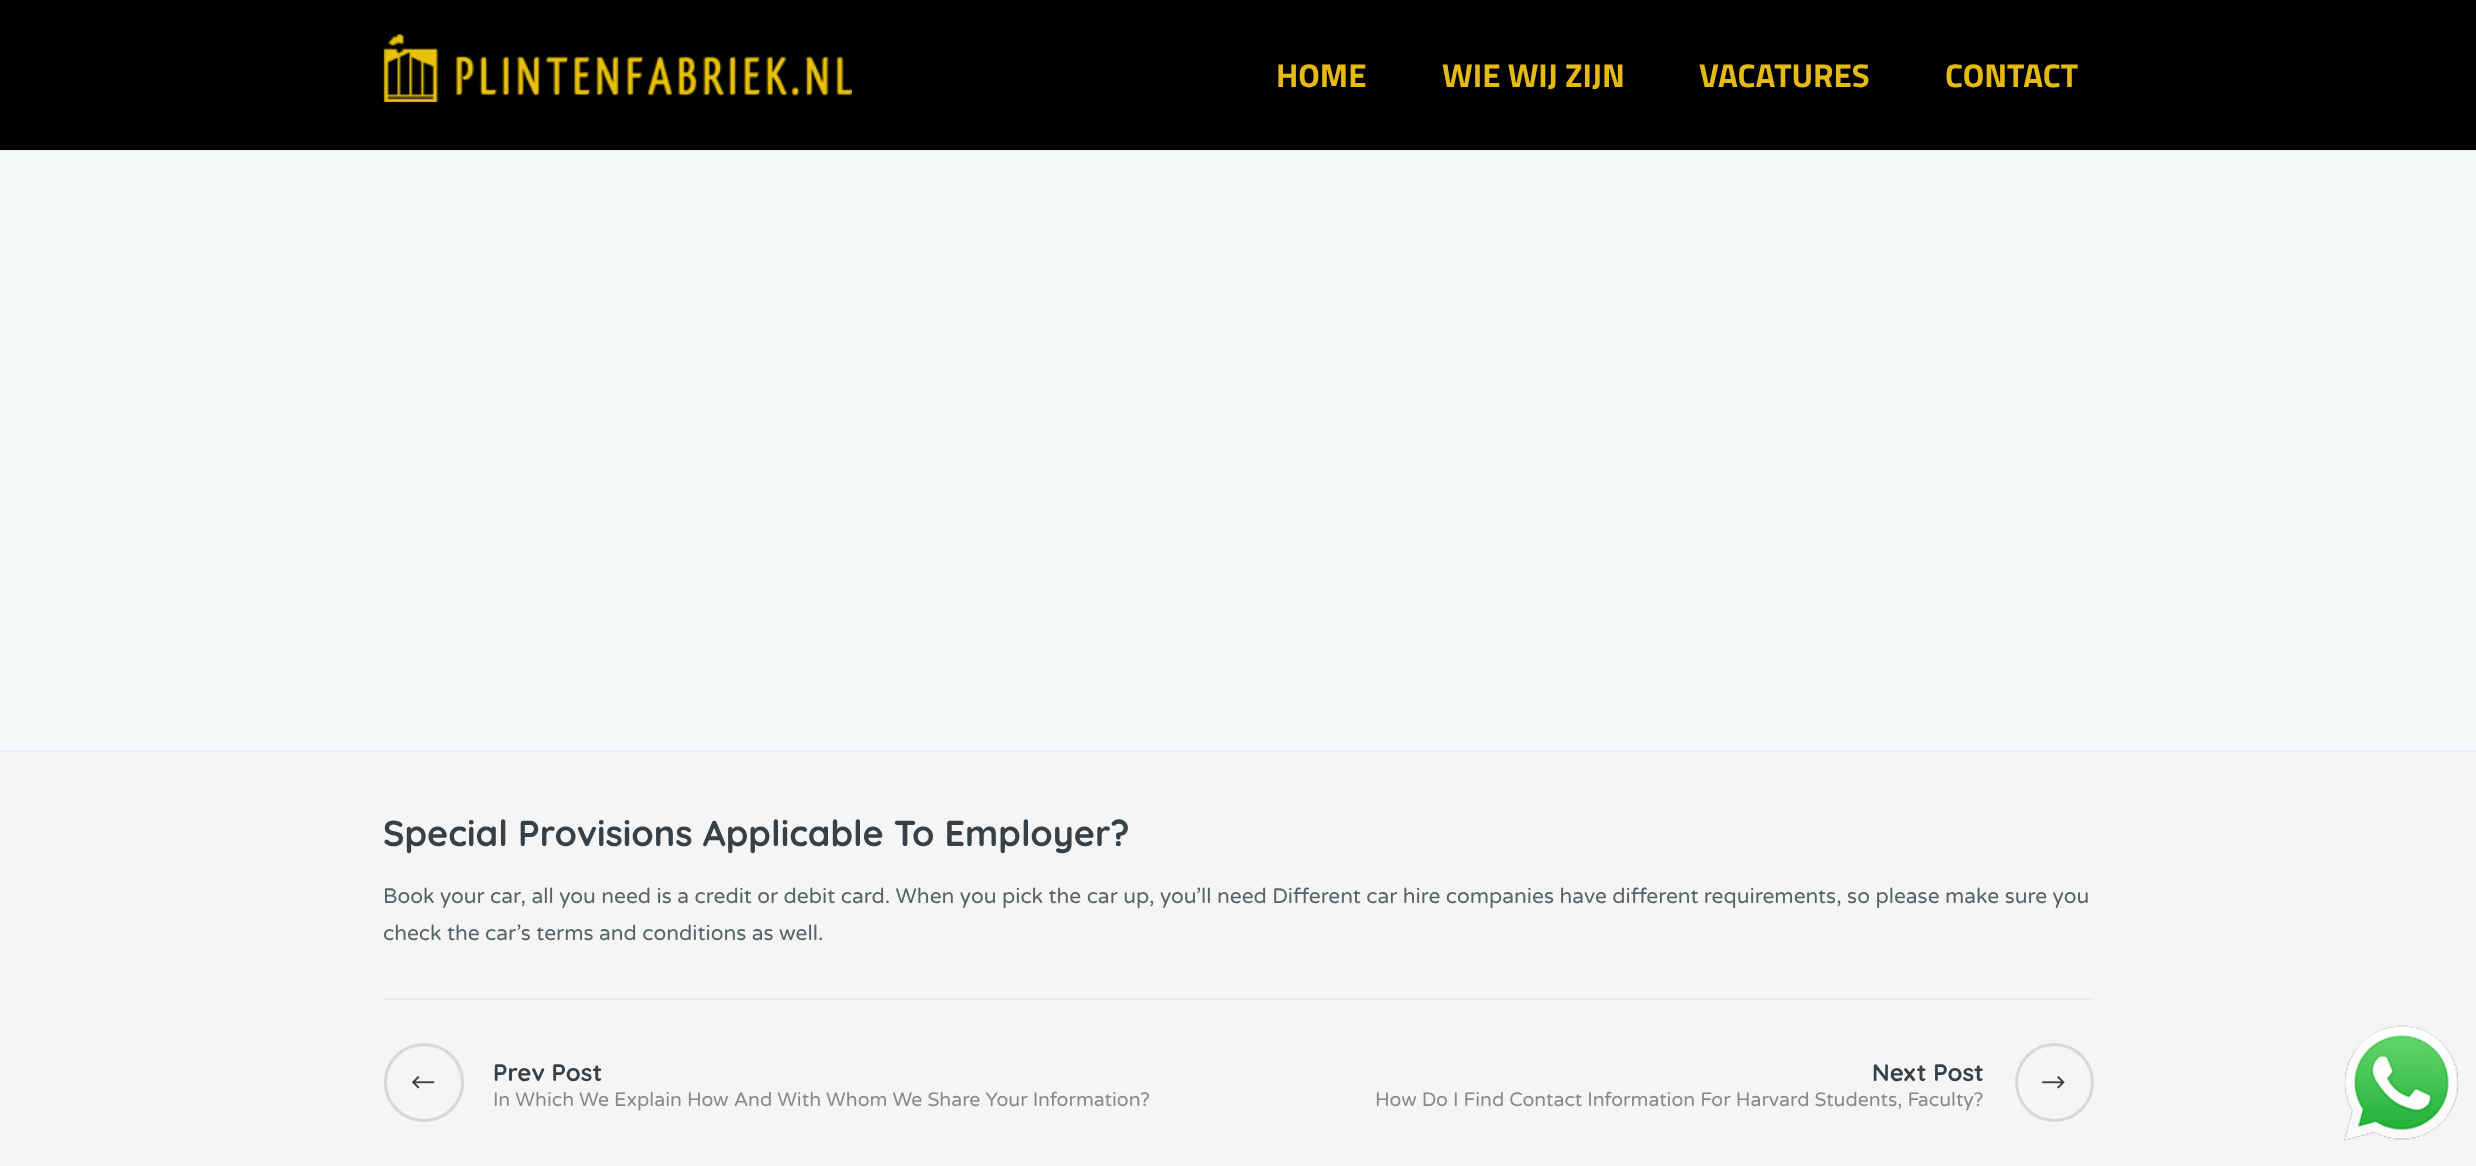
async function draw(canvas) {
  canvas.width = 2476
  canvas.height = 1166
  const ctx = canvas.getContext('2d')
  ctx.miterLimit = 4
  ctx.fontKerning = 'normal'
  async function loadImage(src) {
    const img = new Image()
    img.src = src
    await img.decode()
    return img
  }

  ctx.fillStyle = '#f5f5f5'
  ctx.fillRect(0, 0, 2476, 1166)
  ctx.fillStyle = '#f6f9fa'
  ctx.fillRect(0, 150, 2476, 600)
  ctx.fillStyle = '#00415e33'
  ctx.filter = 'blur(1px)'
  ctx.beginPath()
  ctx.rect(0, 0, 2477, 150)
  ctx.fill()
  ctx.filter = 'none'
  ctx.fillStyle = '#000'
  ctx.fillRect(0, 0, 2476, 150)
  ctx.drawImage(await loadImage('image0.png'), 383, 34, 469, 68)
  ctx.font = 'bold 33px Titillium Web'
  ctx.fillStyle = '#e6b913'
  ctx.fillText('HOME', 1276, 87)
  ctx.fillText('WIE WIJ ZIJN', 1442, 87)
  ctx.fillText('VACATURES', 1699, 87)
  ctx.fillText('CONTACT', 1945, 87)
  ctx.fillStyle = '#e9f0f3'
  ctx.fillRect(0, 750, 2476, 2)
  ctx.font = 'bold 36px Quicksand'
  ctx.fillStyle = '#384047'
  ctx.fillText('Special Provisions Applicable To Employer?', 383, 846)
  ctx.font = '21px Varela Round'
  ctx.fillStyle = '#576366'
  ctx.fillText('Book your car, all you need is a credit or debit card. When you pick the car up, you’ll need Different car hire companies have different requirements, so please make sure you', 383, 903)
  ctx.fillText('check the car’s terms and conditions as well.', 383, 940)
  ctx.fillStyle = '#e8ecec'
  ctx.fillRect(384, 998, 1710, 2)
  ctx.beginPath()
  ctx.roundRect(385.5, 1044.5, 77, 76, 38)
  ctx.strokeStyle = '#d3d9dd'
  ctx.lineWidth = 3
  ctx.stroke()
  ctx.drawImage(await loadImage('image1.png'), 412, 1076, 23, 13)
  ctx.font = 'bold 24px Quicksand'
  ctx.fillStyle = '#384047'
  ctx.fillText('Prev Post', 493, 1081)
  ctx.font = '19.5px Varela Round'
  ctx.fillStyle = '#888'
  ctx.fillText('In Which We Explain How And With Whom We Share Your Information?', 493, 1106)
  ctx.font = 'bold 24px Quicksand'
  ctx.fillStyle = '#384047'
  ctx.fillText('Next Post', 1872, 1081)
  ctx.font = '19.5px Varela Round'
  ctx.fillStyle = '#888'
  ctx.fillText('How Do I Find Contact Information For Harvard Students, Faculty?', 1375, 1106)
  ctx.beginPath()
  ctx.arc(2054.5, 1082.5, 38, 0, 2 * Math.PI)
  ctx.stroke()
  ctx.drawImage(await loadImage('image2.png'), 2042, 1076, 23, 13)
  ctx.drawImage(await loadImage('image3.png'), 2343, 1025, 116, 116)
}

draw(document.querySelector('canvas'))
